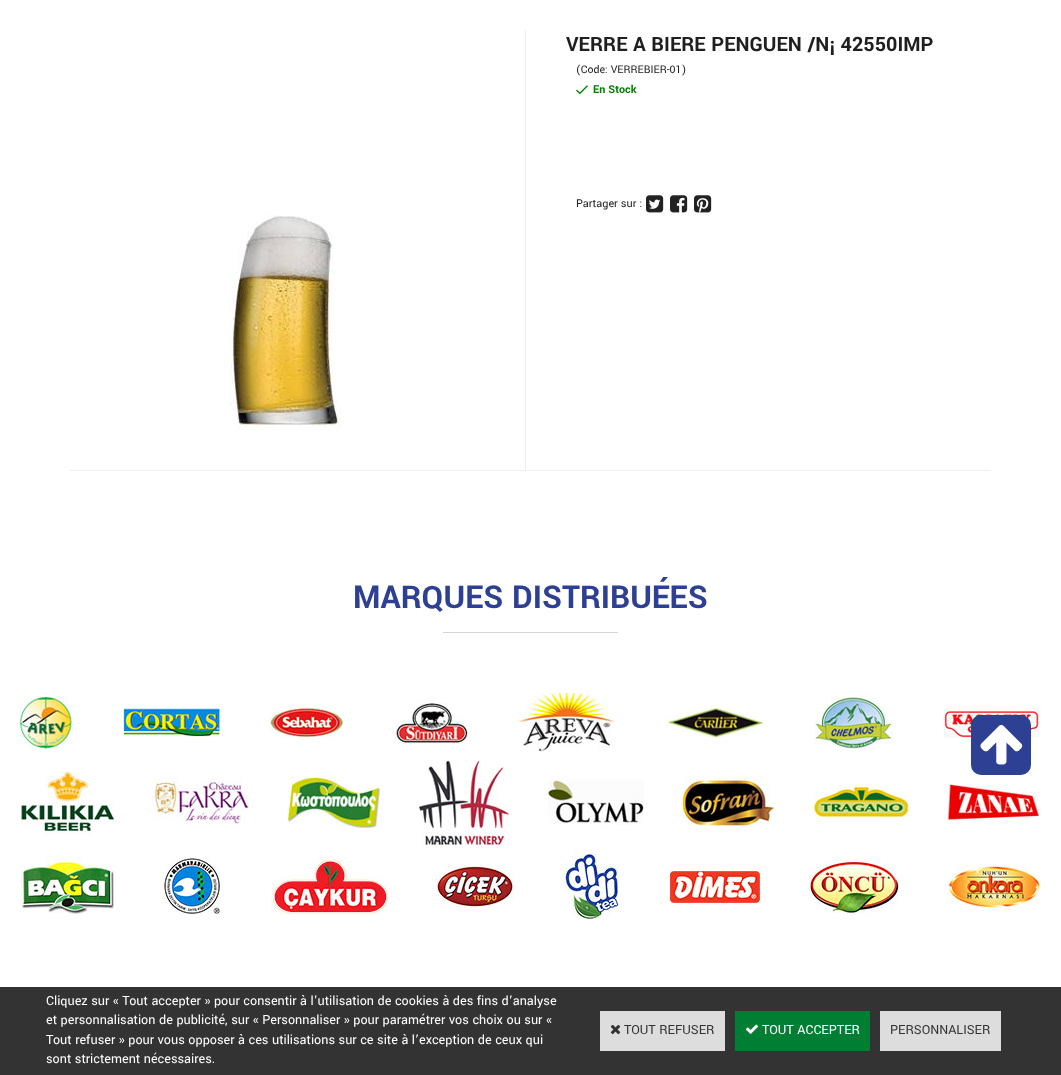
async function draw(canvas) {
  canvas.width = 1061
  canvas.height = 1075
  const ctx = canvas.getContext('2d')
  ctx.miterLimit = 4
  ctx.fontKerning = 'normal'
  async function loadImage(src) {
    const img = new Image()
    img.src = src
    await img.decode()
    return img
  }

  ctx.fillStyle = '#fff'
  ctx.fillRect(0, 0, 1061, 1075)
  ctx.fillStyle = '#eee'
  ctx.fillRect(525, 30, 1, 441)
  ctx.fillRect(70, 470, 921, 1)
  ctx.drawImage(await loadImage('image0.png'), 229, 214, 112, 216)
  ctx.font = 'bold 22px Yantramanav'
  ctx.fillStyle = '#201f1f'
  ctx.fillText('VERRE A BIERE PENGUEN /N¡ 42550IMP', 566, 51)
  ctx.font = '11.75px Yantramanav'
  ctx.fillText('(Code: VERREBIER-01)', 576, 73)
  ctx.drawImage(await loadImage('image1.png'), 576, 85, 12, 10)
  ctx.font = 'bold 12px Yantramanav'
  ctx.fillStyle = '#008000'
  ctx.fillText('En Stock', 593, 93)
  ctx.font = '12px Yantramanav'
  ctx.fillStyle = '#201f1f'
  ctx.fillText('Partager sur :', 576, 207)
  ctx.drawImage(await loadImage('image2.png'), 646, 195, 18, 18)
  ctx.drawImage(await loadImage('image3.png'), 670, 195, 18, 18)
  ctx.drawImage(await loadImage('image4.png'), 694, 195, 18, 18)
  ctx.font = 'bold 35px Yantramanav'
  ctx.fillStyle = '#2e4093'
  ctx.fillText('MARQUES DISTRIBUÉES', 353, 608)
  ctx.fillStyle = '#d5d5d5'
  ctx.fillRect(443, 632, 175, 1)
  ctx.drawImage(await loadImage('image5.png'), 20, 697, 52, 52)
  ctx.drawImage(await loadImage('image6.png'), 123, 708, 97, 29)
  ctx.drawImage(await loadImage('image7.png'), 270, 707, 74, 31)
  ctx.drawImage(await loadImage('image8.png'), 395, 702, 73, 41)
  ctx.drawImage(await loadImage('image9.png'), 518, 693, 96, 59)
  ctx.drawImage(await loadImage('image10.png'), 666, 708, 98, 30)
  ctx.drawImage(await loadImage('image11.png'), 814, 697, 79, 52)
  ctx.drawImage(await loadImage('image12.png'), 944, 708, 96, 30)
  ctx.drawImage(await loadImage('image13.png'), 20, 771, 96, 63)
  ctx.drawImage(await loadImage('image14.png'), 154, 779, 95, 46)
  ctx.drawImage(await loadImage('image15.png'), 287, 777, 93, 51)
  ctx.drawImage(await loadImage('image16.png'), 419, 759, 91, 87)
  ctx.drawImage(await loadImage('image17.png'), 548, 779, 96, 46)
  ctx.drawImage(await loadImage('image18.png'), 683, 779, 92, 47)
  ctx.drawImage(await loadImage('image19.png'), 813, 785, 96, 32)
  ctx.drawImage(await loadImage('image20.png'), 948, 784, 93, 37)
  ctx.drawImage(await loadImage('image21.png'), 20, 858, 96, 56)
  ctx.drawImage(await loadImage('image22.png'), 164, 858, 56, 56)
  ctx.drawImage(await loadImage('image23.png'), 271, 859, 117, 56)
  ctx.drawImage(await loadImage('image24.png'), 436, 866, 78, 41)
  ctx.drawImage(await loadImage('image25.png'), 563, 852, 56, 69)
  ctx.drawImage(await loadImage('image26.png'), 670, 871, 90, 32)
  ctx.drawImage(await loadImage('image27.png'), 809, 859, 91, 55)
  ctx.drawImage(await loadImage('image28.png'), 948, 865, 93, 43)
  ctx.fillStyle = '#2e4093'
  ctx.beginPath()
  ctx.roundRect(971, 715, 60, 60, 10)
  ctx.fill()
  ctx.drawImage(await loadImage('image29.png'), 980, 725, 43, 40)
  ctx.fillStyle = '#333'
  ctx.fillRect(0, 987, 1061, 88)
  ctx.font = '14px Yantramanav'
  ctx.fillStyle = '#fff'
  ctx.fillText('Cliquez sur « Tout accepter » pour consentir à l\'utilisation de cookies à des fins d’analyse', 46, 1005)
  ctx.fillText('et personnalisation de publicité, sur « Personnaliser » pour paramétrer vos choix ou sur «', 46, 1024)
  ctx.fillText('Tout refuser » pour vous opposer à ces utilisations sur ce site à l’exception de ceux qui', 46, 1044)
  ctx.fillText('sont strictement nécessaires.', 46, 1063)
  ctx.fillStyle = '#ddd'
  ctx.fillRect(600, 1011, 125, 40)
  ctx.drawImage(await loadImage('image30.png'), 610, 1024, 11, 11)
  ctx.fillStyle = '#333'
  ctx.fillText('TOUT REFUSER', 624, 1034)
  ctx.fillStyle = '#007e33'
  ctx.fillRect(735, 1011, 135, 40)
  ctx.drawImage(await loadImage('image31.png'), 746, 1024, 12, 10)
  ctx.fillStyle = '#fff'
  ctx.fillText('TOUT ACCEPTER', 762, 1034)
  ctx.fillStyle = '#ddd'
  ctx.fillRect(880, 1011, 121, 40)
  ctx.fillStyle = '#333'
  ctx.fillText('PERSONNALISER', 890, 1034)
}

draw(document.querySelector('canvas'))
